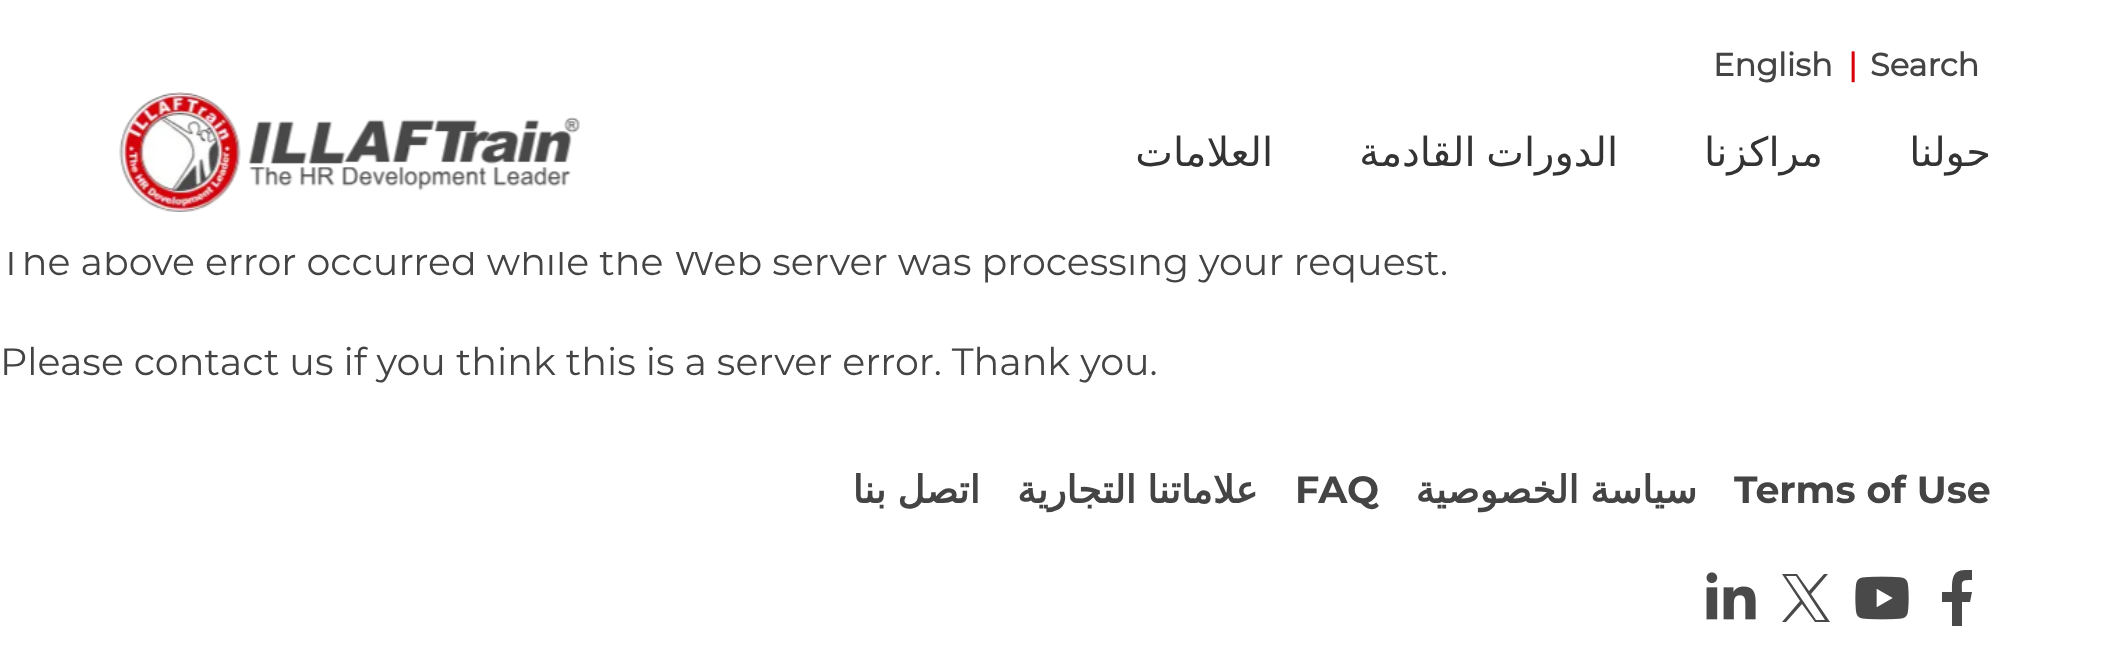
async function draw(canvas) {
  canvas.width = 2110
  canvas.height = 651
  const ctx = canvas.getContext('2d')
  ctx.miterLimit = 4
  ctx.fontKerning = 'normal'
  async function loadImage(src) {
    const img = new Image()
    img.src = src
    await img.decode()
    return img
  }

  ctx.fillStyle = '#fff'
  ctx.fillRect(0, 0, 2110, 651)
  ctx.font = '38px Montserrat'
  ctx.fillStyle = '#444'
  ctx.fillText('The above error occurred while the Web server was processing your request.', 0, 275)
  ctx.fillStyle = '#fff'
  ctx.fillRect(0, 246, 1432, 6)
  ctx.font = 'bold 32px "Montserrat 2"'
  ctx.fillStyle = '#444'
  ctx.fillText('English', 1713, 76)
  ctx.fillStyle = '#d90009'
  ctx.fillText('|', 1848, 76)
  ctx.fillStyle = '#444'
  ctx.fillText('Search', 1870, 76)
  ctx.drawImage(await loadImage('image0.png'), 119, 92, 461, 120)
  ctx.direction = 'rtl'
  ctx.font = '40px DejaVu Sans'
  ctx.fillStyle = '#333'
  ctx.fillText('العلامات', 1273, 166)
  ctx.wordSpacing = '-2px'
  ctx.fillText('الدورات القادمة', 1618, 166)
  ctx.wordSpacing = '0px'
  ctx.fillText('مراكزنا', 1823, 166)
  ctx.fillText('حولنا', 1991, 166)
  ctx.direction = 'ltr'
  ctx.font = '38px Montserrat'
  ctx.fillStyle = '#444'
  ctx.fillText('Please contact us if you think this is a server error. Thank you.', 0, 375)
  ctx.wordSpacing = '-1px'
  ctx.direction = 'rtl'
  ctx.font = 'bold 38px DejaVu Sans'
  ctx.fillText('اتصل بنا', 980, 503)
  ctx.fillText('علاماتنا التجارية', 1258, 503)
  ctx.wordSpacing = '0px'
  ctx.direction = 'ltr'
  ctx.font = 'bold 38px Montserrat'
  ctx.fillText('FAQ', 1295, 503)
  ctx.wordSpacing = '-1px'
  ctx.direction = 'rtl'
  ctx.font = 'bold 38px DejaVu Sans'
  ctx.fillText('سياسة الخصوصية', 1697, 503)
  ctx.wordSpacing = '0px'
  ctx.direction = 'ltr'
  ctx.font = 'bold 38px Montserrat'
  ctx.fillText('Terms of Use', 1734, 503)
  ctx.drawImage(await loadImage('image1.png'), 1706, 572, 50, 48)
  ctx.fillStyle = '#494949'
  ctx.beginPath()
  ctx.moveTo(1782, 574)
  ctx.lineTo(1800, 601)
  ctx.lineTo(1782, 622)
  ctx.lineTo(1786, 622)
  ctx.lineTo(1802, 604)
  ctx.lineTo(1815, 622)
  ctx.lineTo(1830, 622)
  ctx.lineTo(1811, 594)
  ctx.lineTo(1828, 574)
  ctx.lineTo(1824, 574)
  ctx.lineTo(1809, 591)
  ctx.lineTo(1797, 574)
  ctx.closePath()
  ctx.moveTo(1786, 576)
  ctx.lineTo(1796, 576)
  ctx.lineTo(1825, 620)
  ctx.lineTo(1816, 620)
  ctx.closePath()
  ctx.fill()
  ctx.drawImage(await loadImage('image2.png'), 1855, 576, 54, 44)
  ctx.beginPath()
  ctx.moveTo(1965, 570)
  ctx.bezierCurveTo(1951, 570, 1952, 582, 1952, 592)
  ctx.lineTo(1942, 592)
  ctx.lineTo(1942, 602)
  ctx.lineTo(1952, 602)
  ctx.lineTo(1952, 626)
  ctx.lineTo(1962, 626)
  ctx.lineTo(1962, 602)
  ctx.lineTo(1970, 602)
  ctx.lineTo(1972, 592)
  ctx.lineTo(1962, 592)
  ctx.bezierCurveTo(1962, 581, 1960, 580, 1972, 580)
  ctx.lineTo(1972, 570)
  ctx.closePath()
  ctx.fill()
}

draw(document.querySelector('canvas'))
